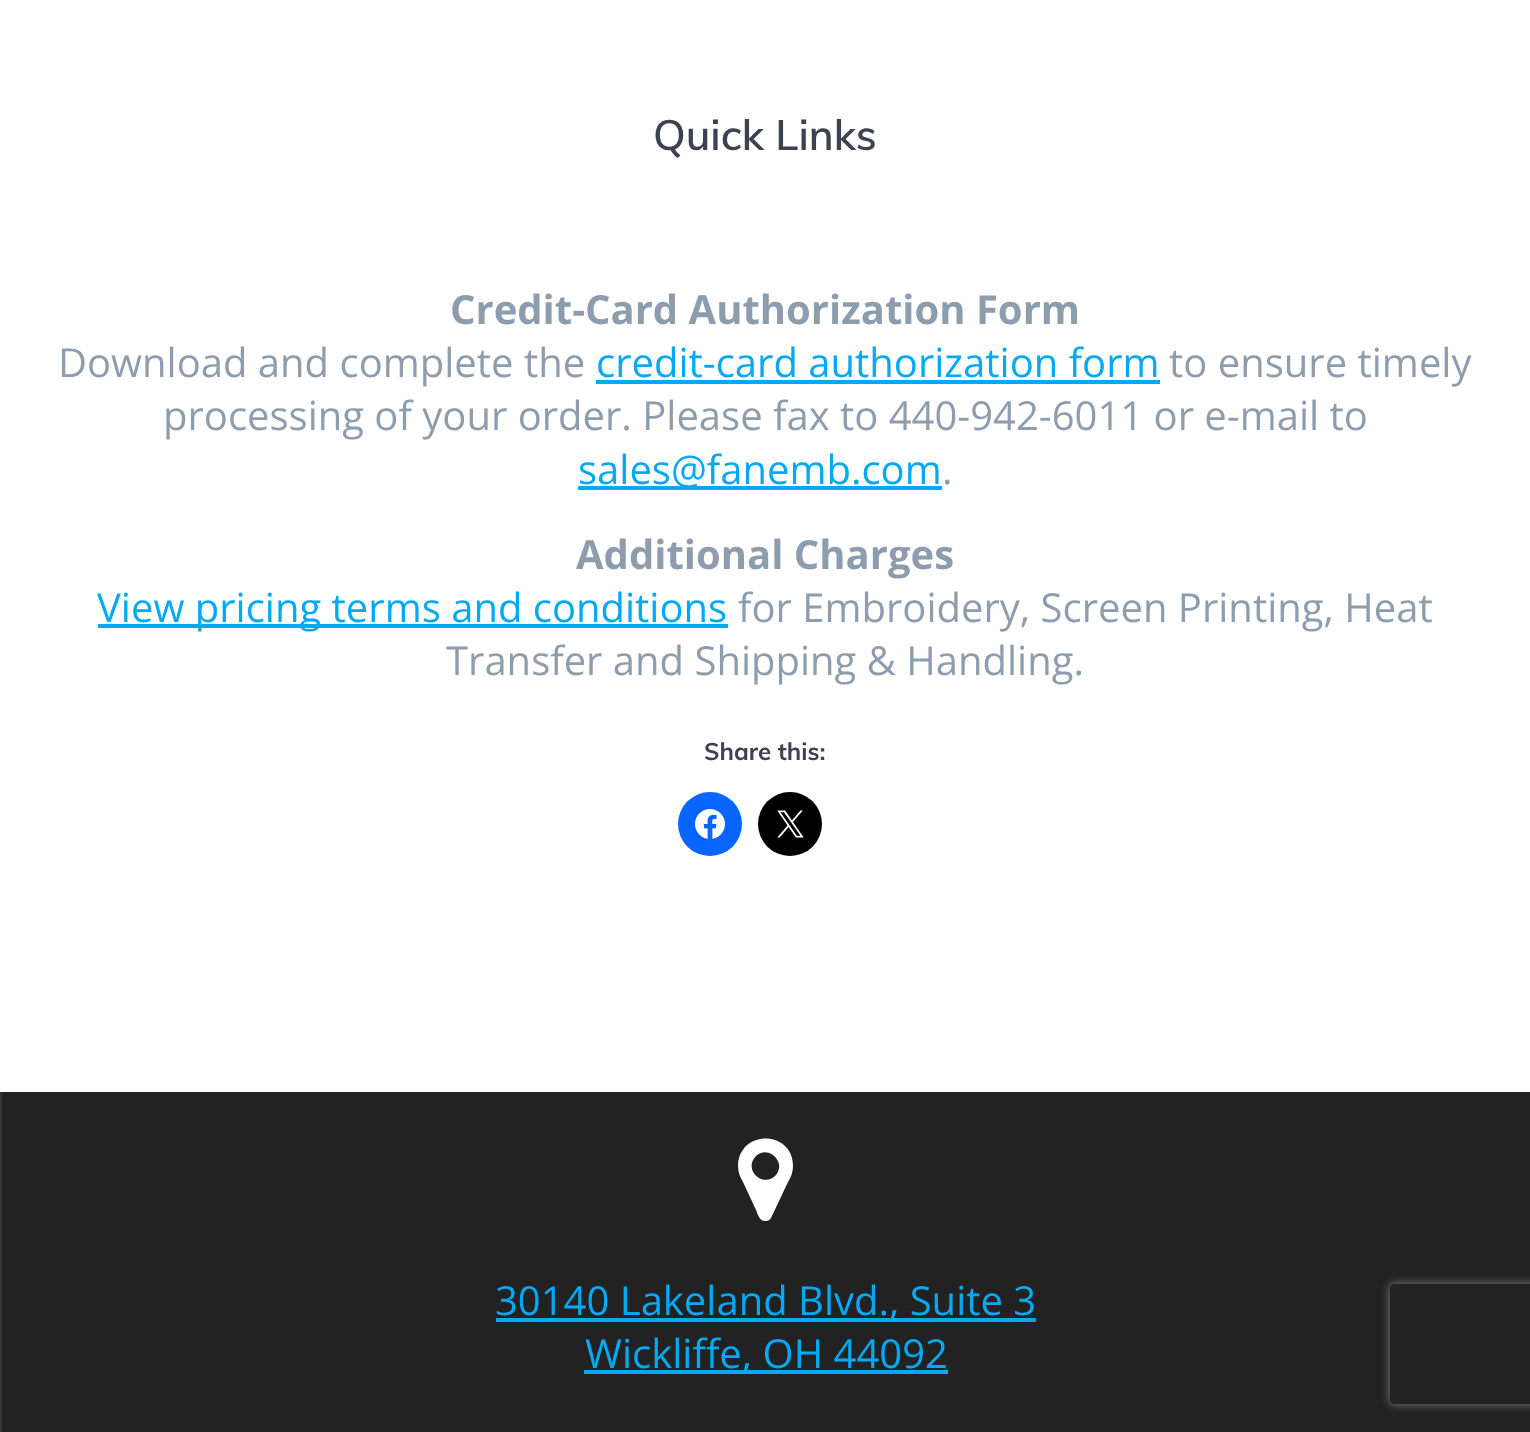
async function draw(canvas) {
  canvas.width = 1530
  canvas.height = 1432
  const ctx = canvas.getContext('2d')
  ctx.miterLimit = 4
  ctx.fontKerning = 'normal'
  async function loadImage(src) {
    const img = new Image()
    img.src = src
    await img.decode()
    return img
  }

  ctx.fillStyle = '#fff'
  ctx.fillRect(0, 0, 1530, 1432)
  ctx.font = '600 42px Muli'
  ctx.fillStyle = '#3c424f'
  ctx.fillText('Quick Links', 653, 150)
  ctx.font = 'bold 40px Open Sans'
  ctx.fillStyle = '#8e9dae'
  ctx.fillText('Credit-Card Authorization Form', 450, 324)
  ctx.font = '40px Open Sans'
  ctx.fillText('Download and complete the', 58, 377)
  ctx.fillStyle = '#03a9f4'
  ctx.fillText('credit-card authorization form', 596, 377)
  ctx.fillRect(596, 380, 564, 4)
  ctx.fillStyle = '#8e9dae'
  ctx.fillText('to ensure timely', 1169, 377)
  ctx.fillText('processing of your order. Please fax to 440-942-6011 or e-mail to', 163, 430)
  ctx.fillStyle = '#03a9f4'
  ctx.fillRect(578, 486, 364, 4)
  ctx.fillText('sales@fanemb.com', 578, 484)
  ctx.fillStyle = '#8e9dae'
  ctx.fillText('.', 942, 484)
  ctx.font = 'bold 40px Open Sans'
  ctx.fillText('Additional Charges', 576, 569)
  ctx.fillStyle = '#03a9f4'
  ctx.fillRect(98, 624, 630, 4)
  ctx.font = '40px Open Sans'
  ctx.fillText('View pricing terms and conditions', 97, 622)
  ctx.fillStyle = '#8e9dae'
  ctx.fillText('for Embroidery, Screen Printing, Heat', 738, 622)
  ctx.fillText('Transfer and Shipping & Handling.', 446, 675)
  ctx.font = 'bold 24px Muli'
  ctx.fillStyle = '#3c424f'
  ctx.fillText('Share this:', 704, 760)
  ctx.fillStyle = '#0866ff'
  ctx.beginPath()
  ctx.arc(710, 824, 32, 0, 2 * Math.PI)
  ctx.fill()
  ctx.drawImage(await loadImage('image0.png'), 695, 809, 30, 30)
  ctx.fillStyle = '#000'
  ctx.beginPath()
  ctx.arc(790, 824, 32, 0, 2 * Math.PI)
  ctx.fill()
  ctx.drawImage(await loadImage('image1.png'), 777, 810, 27, 28)
  ctx.fillStyle = '#222'
  ctx.fillRect(2, 1092, 1528, 340)
  ctx.fillStyle = '#353535'
  ctx.fillRect(0, 1092, 2, 340)
  ctx.fillStyle = '#fff'
  ctx.beginPath()
  ctx.moveTo(775, 1176)
  ctx.bezierCurveTo(788, 1163, 768, 1144, 756, 1156)
  ctx.bezierCurveTo(743, 1169, 762, 1188, 775, 1176)
  ctx.closePath()
  ctx.moveTo(793, 1166)
  ctx.bezierCurveTo(793, 1172, 791, 1177, 788, 1182)
  ctx.lineTo(771, 1218)
  ctx.bezierCurveTo(770, 1220, 768, 1221, 766, 1221)
  ctx.bezierCurveTo(760, 1222, 758, 1215, 756, 1210)
  ctx.lineTo(743, 1182)
  ctx.bezierCurveTo(740, 1177, 738, 1172, 738, 1166)
  ctx.bezierCurveTo(739, 1129, 793, 1130, 793, 1166)
  ctx.closePath()
  ctx.fill()
  ctx.fillStyle = '#03a9f4'
  ctx.fillRect(496, 1318, 540, 4)
  ctx.font = '40px Open Sans'
  ctx.fillText('30140 Lakeland Blvd., Suite 3', 495, 1315)
  ctx.fillRect(584, 1370, 364, 4)
  ctx.fillText('Wickliffe, OH 44092', 585, 1368)
  ctx.save()
  ctx.beginPath()
  ctx.moveTo(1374, 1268)
  ctx.lineTo(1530, 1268)
  ctx.lineTo(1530, 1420)
  ctx.lineTo(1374, 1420)
  ctx.closePath()
  ctx.moveTo(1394, 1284)
  ctx.lineTo(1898, 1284)
  ctx.bezierCurveTo(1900, 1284, 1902, 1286, 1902, 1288)
  ctx.lineTo(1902, 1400)
  ctx.bezierCurveTo(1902, 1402, 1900, 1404, 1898, 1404)
  ctx.lineTo(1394, 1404)
  ctx.bezierCurveTo(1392, 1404, 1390, 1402, 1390, 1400)
  ctx.lineTo(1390, 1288)
  ctx.bezierCurveTo(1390, 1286, 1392, 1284, 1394, 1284)
  ctx.closePath()
  ctx.clip('evenodd')
  ctx.fillStyle = '#808080'
  ctx.filter = 'blur(5px)'
  ctx.beginPath()
  ctx.roundRect(1390, 1284, 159, 120, 4)
  ctx.fill()
  ctx.filter = 'none'
  ctx.restore()
}

draw(document.querySelector('canvas'))
